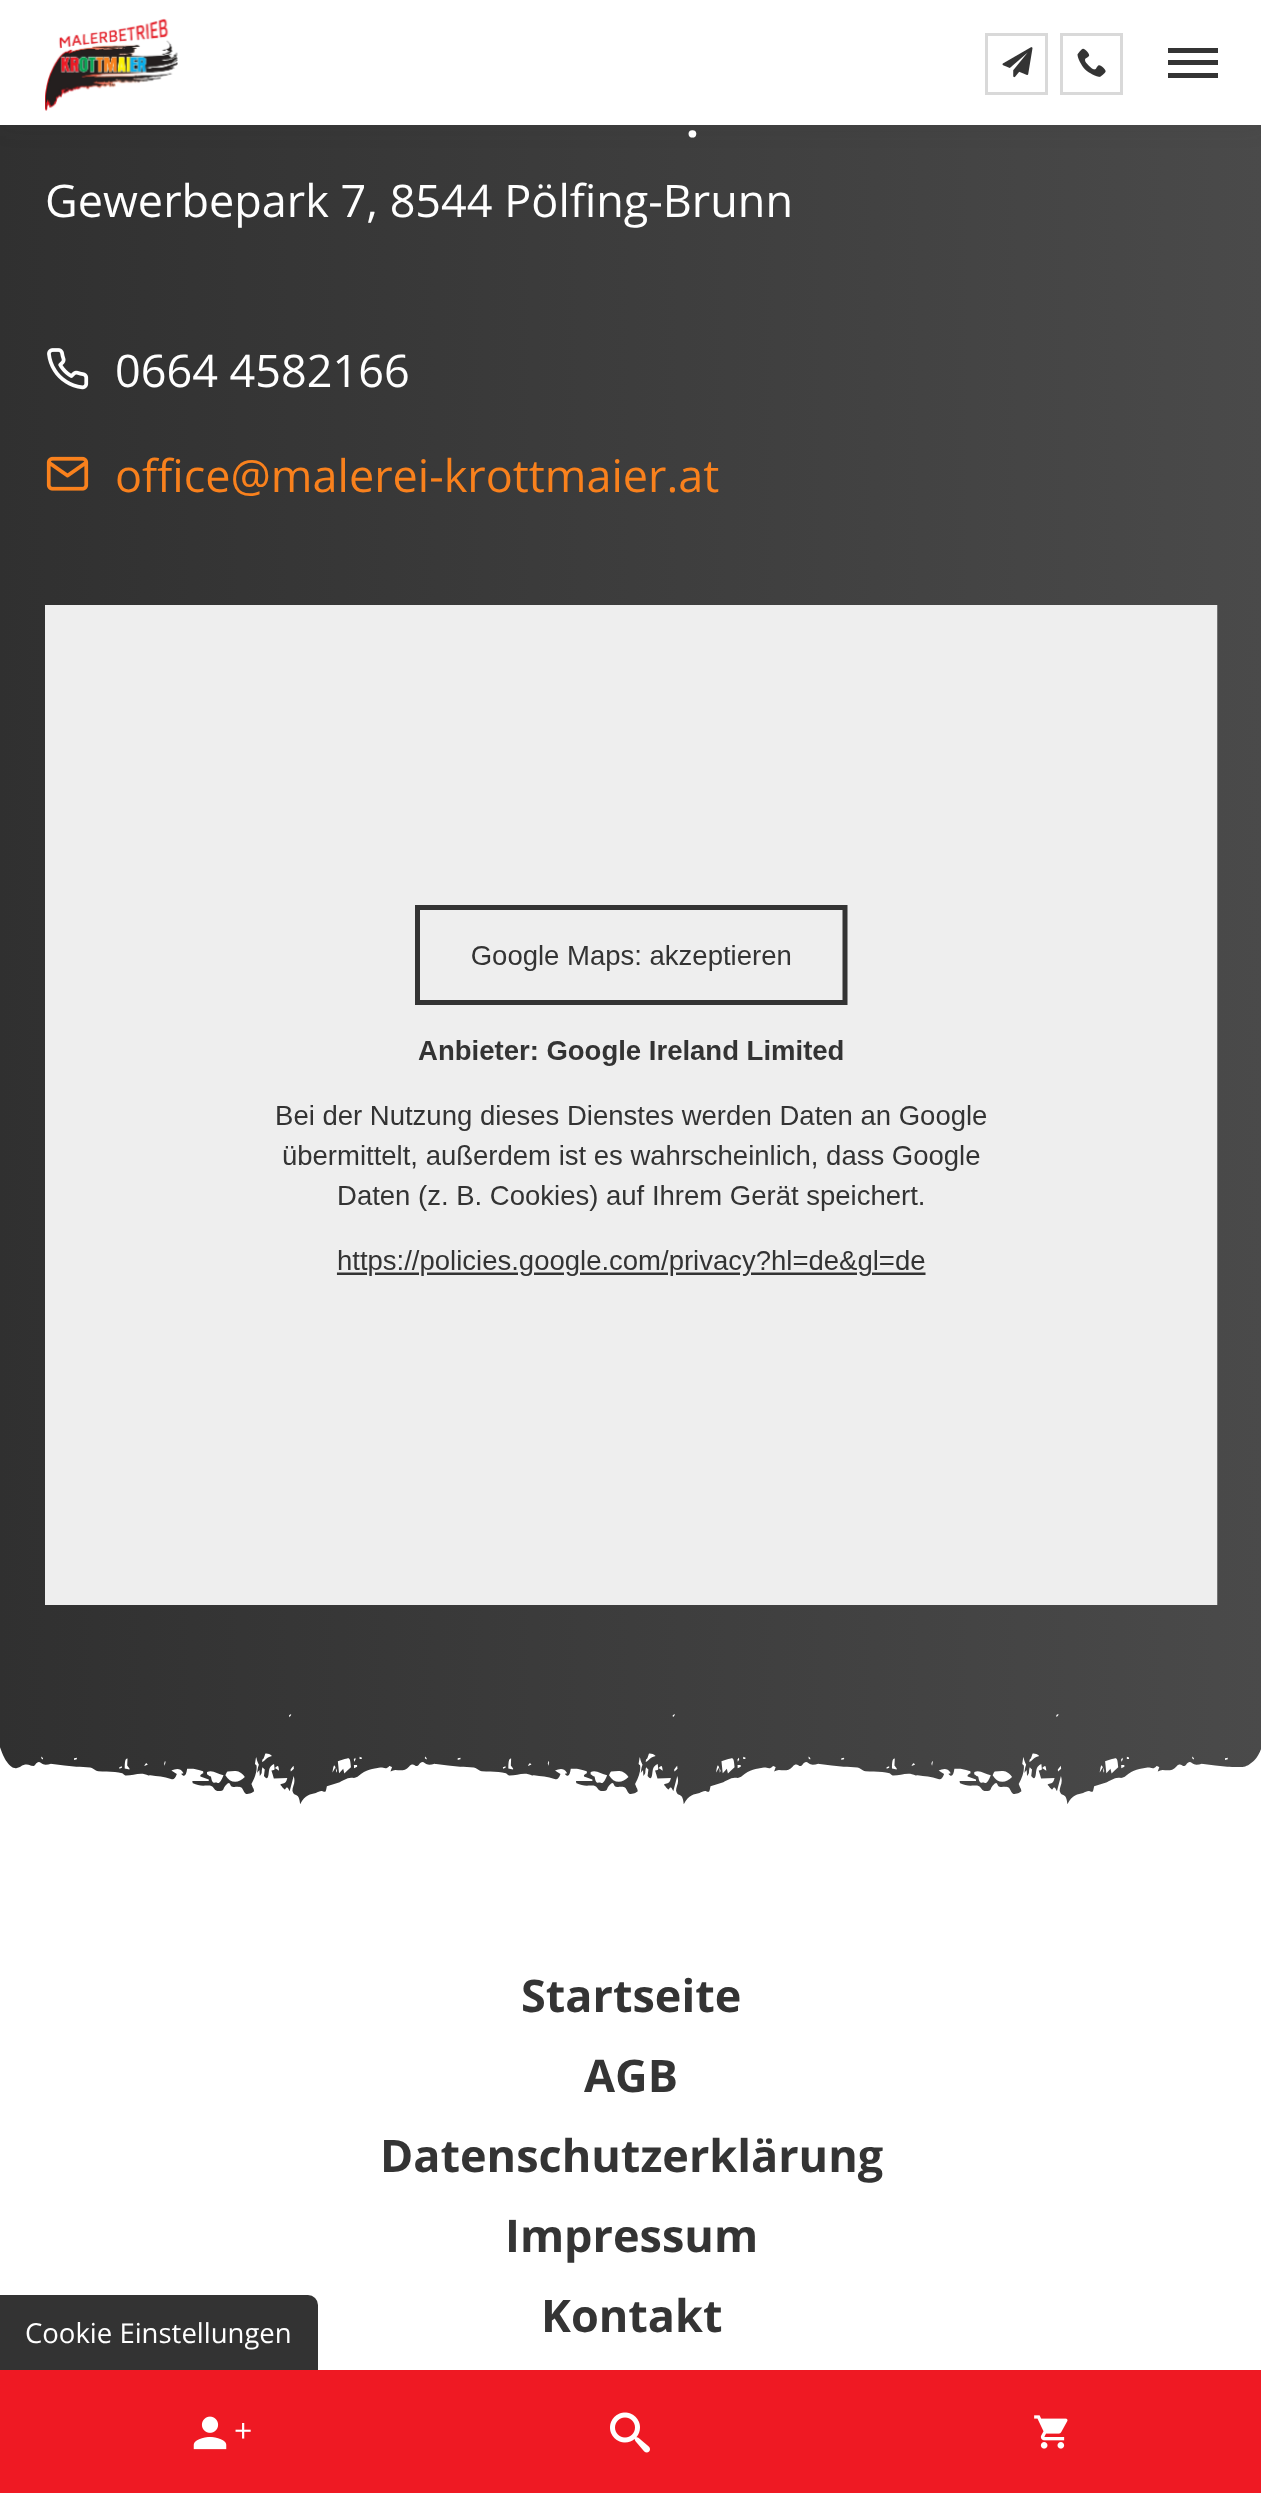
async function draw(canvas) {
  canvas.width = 1261
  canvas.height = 2493
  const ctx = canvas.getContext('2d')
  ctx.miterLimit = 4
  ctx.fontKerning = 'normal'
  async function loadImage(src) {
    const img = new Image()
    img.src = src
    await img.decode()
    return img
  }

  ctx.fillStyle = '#fff'
  ctx.fillRect(0, 0, 1261, 2493)
  ctx.drawImage(await loadImage('image3.png'), 0, 125, 1261, 1679)
  ctx.fillStyle = '#3434341a'
  ctx.filter = 'blur(12.5px)'
  ctx.beginPath()
  ctx.rect(0, 0, 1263, 125)
  ctx.fill()
  ctx.filter = 'none'
  ctx.fillStyle = '#fff'
  ctx.fillRect(0, 0, 1261, 125)
  ctx.drawImage(await loadImage('image0.png'), 45, 18, 133, 93)
  ctx.strokeStyle = '#d9d9d9'
  ctx.lineWidth = 3
  ctx.strokeRect(986.5, 34.5, 60, 59)
  ctx.drawImage(await loadImage('image1.png'), 1002, 47, 31, 31)
  ctx.strokeRect(1061.5, 34.5, 60, 59)
  ctx.drawImage(await loadImage('image2.png'), 1077, 48, 29, 29)
  ctx.fillStyle = '#343434'
  ctx.fillRect(1168, 60, 50, 5)
  ctx.fillRect(1168, 48, 50, 5)
  ctx.fillRect(1168, 73, 50, 5)
  ctx.font = 'bold 45px Open Sans'
  ctx.fillStyle = '#fff'
  ctx.fillText('.', 686, 137)
  ctx.font = '45px Open Sans'
  ctx.fillText('Gewerbepark 7, 8544 Pölfing-Brunn', 45, 217)
  ctx.drawImage(await loadImage('image4.png'), 47, 348, 42, 42)
  ctx.fillText('0664 4582166', 115, 387)
  ctx.drawImage(await loadImage('image5.png'), 46, 456, 43, 35)
  ctx.fillStyle = '#f9811d'
  ctx.fillText('office@malerei-krottmaier.at', 115, 492)
  ctx.drawImage(await loadImage('image6.png'), 45, 605, 1173, 1000)
  ctx.font = 'bold 45px Open Sans'
  ctx.fillStyle = '#343434'
  ctx.fillText('Startseite', 521, 2012)
  ctx.fillText('AGB', 584, 2092)
  ctx.fillText('Datenschutzerklärung', 380, 2172)
  ctx.fillText('Impressum', 505, 2252)
  ctx.fillText('Kontakt', 541, 2332)
  ctx.fillStyle = '#333'
  ctx.beginPath()
  ctx.roundRect(0, 2295, 318, 75, [0, 10, 0, 0])
  ctx.fill()
  ctx.font = '27.5px Open Sans'
  ctx.fillStyle = '#fff'
  ctx.fillText('Cookie Einstellungen', 25, 2343)
  ctx.fillStyle = '#ef1923'
  ctx.fillRect(0, 2370, 1261, 123)
  ctx.drawImage(await loadImage('image7.png'), 193, 2416, 34, 34)
  ctx.font = '32px Open Sans'
  ctx.fillStyle = '#fff'
  ctx.fillText('+', 234, 2442)
  ctx.drawImage(await loadImage('image8.png'), 610, 2412, 40, 41)
  ctx.drawImage(await loadImage('image9.png'), 1034, 2415, 34, 34)
}

draw(document.querySelector('canvas'))
